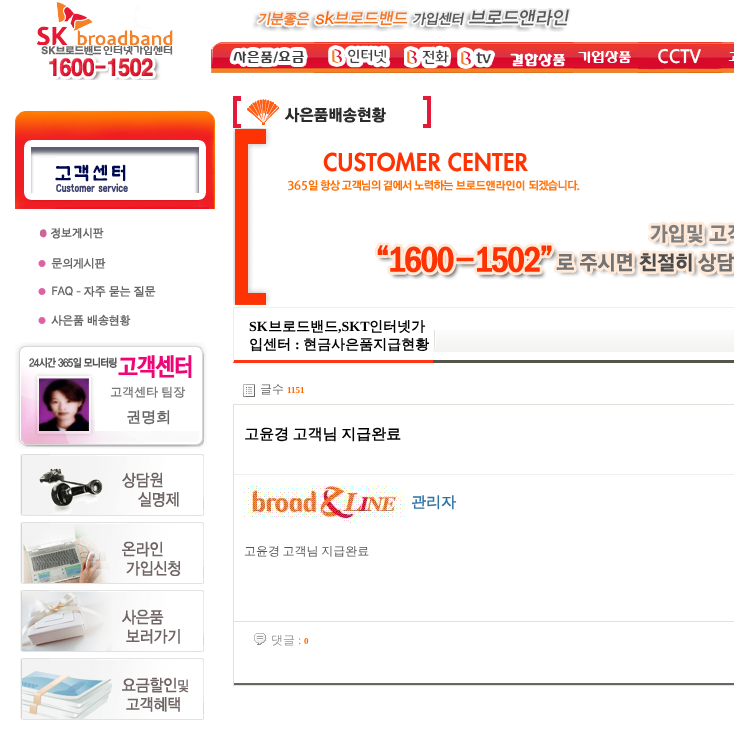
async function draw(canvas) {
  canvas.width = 734
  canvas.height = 744
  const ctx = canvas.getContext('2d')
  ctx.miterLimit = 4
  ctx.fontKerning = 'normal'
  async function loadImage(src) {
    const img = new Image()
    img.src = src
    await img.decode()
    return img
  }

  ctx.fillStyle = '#fff'
  ctx.fillRect(0, 0, 734, 744)
  ctx.drawImage(await loadImage('image0.png'), 36, 2, 137, 78)
  ctx.drawImage(await loadImage('image1.png'), 211, 42, 103, 31)
  ctx.drawImage(await loadImage('image2.png'), 314, 42, 90, 31)
  ctx.drawImage(await loadImage('image3.png'), 404, 42, 47, 31)
  ctx.drawImage(await loadImage('image4.png'), 451, 42, 52, 31)
  ctx.drawImage(await loadImage('image5.png'), 503, 42, 70, 31)
  ctx.drawImage(await loadImage('image6.png'), 573, 42, 65, 31)
  ctx.drawImage(await loadImage('image7.png'), 638, 42, 84, 31)
  ctx.drawImage(await loadImage('image8.png'), 722, 42, 12, 31)
  ctx.drawImage(await loadImage('image9.png'), 252, 7, 319, 25)
  ctx.drawImage(await loadImage('image10.png'), 15, 110, 200, 99)
  ctx.drawImage(await loadImage('image11.png'), 40, 227, 64, 12)
  ctx.drawImage(await loadImage('image12.png'), 38, 258, 68, 11)
  ctx.drawImage(await loadImage('image13.png'), 38, 286, 118, 11)
  ctx.drawImage(await loadImage('image14.png'), 38, 314, 93, 12)
  ctx.drawImage(await loadImage('image15.png'), 15, 342, 192, 107)
  ctx.drawImage(await loadImage('image16.png'), 39, 378, 50, 53)
  ctx.font = 'bold 12px WenQuanYi Zen Hei'
  ctx.fillStyle = '#797979'
  ctx.fillText('고객센타', 110, 396)
  ctx.fillText('팀장', 161, 396)
  ctx.font = 'bold 15px WenQuanYi Zen Hei'
  ctx.fillStyle = '#666'
  ctx.fillText('권명희', 126, 422)
  ctx.drawImage(await loadImage('image17.png'), 20, 454, 184, 62)
  ctx.drawImage(await loadImage('image18.png'), 20, 522, 184, 62)
  ctx.drawImage(await loadImage('image19.png'), 20, 590, 184, 62)
  ctx.drawImage(await loadImage('image20.png'), 20, 658, 184, 62)
  ctx.drawImage(await loadImage('image21.png'), 233, 96, 198, 32)
  ctx.drawImage(await loadImage('image22.png'), 233, 128, 501, 177)
  ctx.fillStyle = '#eee'
  ctx.fillRect(233, 307, 501, 1)
  ctx.fillStyle = '#fe3614'
  ctx.beginPath()
  ctx.moveTo(433, 363)
  ctx.lineTo(233, 363)
  ctx.lineTo(234, 360)
  ctx.lineTo(433, 360)
  ctx.closePath()
  ctx.fill()
  ctx.fillStyle = '#eee'
  ctx.beginPath()
  ctx.moveTo(233, 363)
  ctx.lineTo(233, 307)
  ctx.lineTo(234, 308)
  ctx.lineTo(234, 360)
  ctx.closePath()
  ctx.fill()
  ctx.font = 'bold 14px Liberation Serif'
  ctx.fillStyle = '#000'
  ctx.fillText('SK', 249, 331)
  ctx.font = 'bold 14px WenQuanYi Zen Hei'
  ctx.fillText('브로드밴드', 268, 331)
  ctx.font = 'bold 14px Liberation Serif'
  ctx.fillText(',SKT', 338, 331)
  ctx.font = 'bold 14px WenQuanYi Zen Hei'
  ctx.fillText('인터넷가', 369, 331)
  ctx.fillText('입센터', 249, 349)
  ctx.font = 'bold 14px Liberation Serif'
  ctx.fillText(':', 295, 349)
  ctx.font = 'bold 14px WenQuanYi Zen Hei'
  ctx.fillText('현금사은품지급현황', 303, 349)
  ctx.drawImage(await loadImage('image23.png'), 433, 330, 301, 22)
  ctx.fillStyle = '#54564b'
  ctx.beginPath()
  ctx.moveTo(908, 363)
  ctx.lineTo(433, 363)
  ctx.lineTo(433, 360)
  ctx.lineTo(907, 360)
  ctx.closePath()
  ctx.fill()
  ctx.drawImage(await loadImage('image24.png'), 243, 384, 12, 13)
  ctx.font = '500 12px WenQuanYi Zen Hei'
  ctx.fillStyle = '#666'
  ctx.fillText('글수', 260, 393)
  ctx.font = 'bold 9px Liberation Serif'
  ctx.fillStyle = '#f60'
  ctx.fillText('1151', 287, 393)
  ctx.strokeStyle = '#e0e1db'
  ctx.strokeRect(233.5, 404.5, 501, 281)
  ctx.wordSpacing = '-1px'
  ctx.font = 'bold 15px WenQuanYi Zen Hei'
  ctx.fillStyle = '#000'
  ctx.fillText('고윤경 고객님 지급완료', 244, 439)
  ctx.fillStyle = '#eff0ed'
  ctx.fillRect(234, 474, 500, 1)
  ctx.drawImage(await loadImage('image25.png'), 244, 485, 161, 38)
  ctx.wordSpacing = '0px'
  ctx.fillStyle = '#3074a5'
  ctx.fillText('관리자', 411, 507)
  ctx.wordSpacing = '-1px'
  ctx.font = '500 12px WenQuanYi Zen Hei'
  ctx.fillStyle = '#555'
  ctx.fillText('고윤경 고객님 지급완료', 244, 555)
  ctx.fillStyle = '#e0e1db'
  ctx.fillRect(234, 621, 500, 1)
  ctx.fillStyle = '#666760'
  ctx.fillRect(234, 683, 500, 2)
  ctx.drawImage(await loadImage('image26.png'), 254, 633, 12, 12)
  ctx.wordSpacing = '0px'
  ctx.fillStyle = '#999'
  ctx.fillText('댓글', 271, 644)
  ctx.font = '12px Liberation Serif'
  ctx.fillText(':', 298, 644)
  ctx.font = 'bold 9px Liberation Serif'
  ctx.fillStyle = '#f60'
  ctx.fillText('0', 304, 644)
}

draw(document.querySelector('canvas'))
